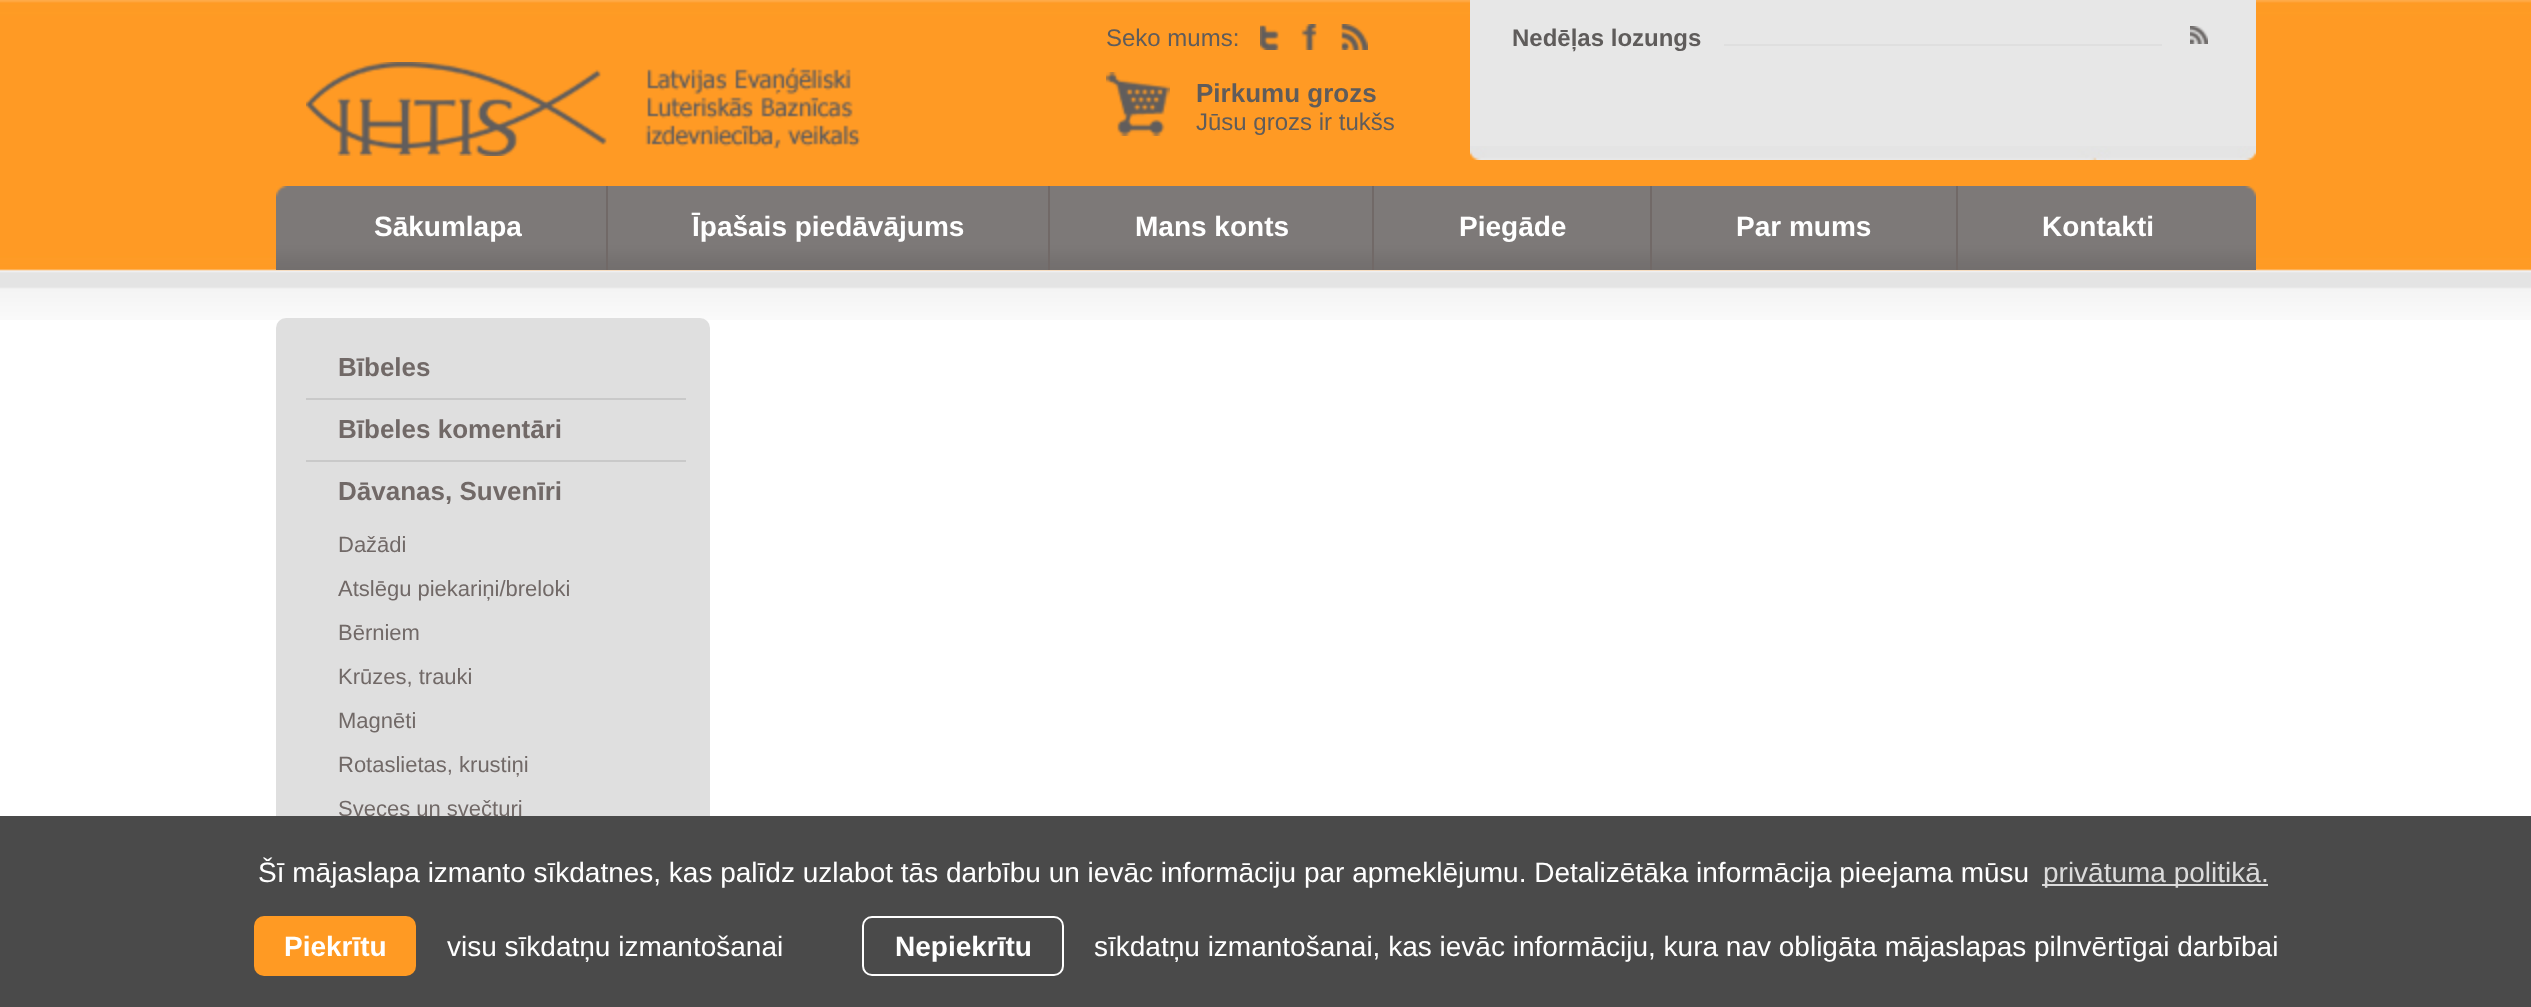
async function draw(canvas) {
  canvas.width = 2531
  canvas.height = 1007
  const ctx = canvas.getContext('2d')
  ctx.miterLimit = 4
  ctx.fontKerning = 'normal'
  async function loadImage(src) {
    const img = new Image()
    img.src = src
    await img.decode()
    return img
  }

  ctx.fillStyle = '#fff'
  ctx.fillRect(0, 0, 2531, 1007)
  ctx.drawImage(await loadImage('image0.png'), 0, 0, 2531, 320)
  ctx.drawImage(await loadImage('image1.png'), 306, 62, 554, 94)
  ctx.font = '24px Liberation Sans'
  ctx.fillStyle = '#5f5c5b'
  ctx.fillText('Seko mums:', 1106, 46)
  ctx.drawImage(await loadImage('image2.png'), 1260, 25, 19, 25)
  ctx.drawImage(await loadImage('image3.png'), 1301, 24, 16, 26)
  ctx.drawImage(await loadImage('image4.png'), 1341, 24, 27, 26)
  ctx.fillStyle = '#e7e7e7'
  ctx.fillRect(1470, 0, 786, 146)
  ctx.drawImage(await loadImage('image5.png'), 1470, 146, 786, 14)
  ctx.fillStyle = '#dfdfdf'
  ctx.fillRect(1724, 44, 438, 2)
  ctx.font = 'bold 24px Liberation Sans'
  ctx.fillStyle = '#5f5c5b'
  ctx.fillText('Nedēļas lozungs', 1512, 46)
  ctx.drawImage(await loadImage('image6.png'), 2190, 26, 18, 18)
  ctx.drawImage(await loadImage('image7.png'), 1106, 72, 64, 64)
  ctx.font = 'bold 26px Liberation Sans'
  ctx.fillText('Pirkumu grozs', 1196, 102)
  ctx.font = '24px Liberation Sans'
  ctx.fillText('Jūsu grozs ir tukšs', 1196, 130)
  ctx.drawImage(await loadImage('image8.png'), 276, 186, 1980, 84)
  ctx.drawImage(await loadImage('image9.png'), 276, 186, 11, 11)
  ctx.drawImage(await loadImage('image10.png'), 2245, 186, 11, 11)
  ctx.fillStyle = '#716967'
  ctx.fillRect(606, 186, 2, 84)
  ctx.font = 'bold 28px Liberation Sans'
  ctx.fillStyle = '#fff'
  ctx.fillText('Sākumlapa', 374, 236)
  ctx.fillStyle = '#716967'
  ctx.fillRect(1048, 186, 2, 84)
  ctx.fillStyle = '#fff'
  ctx.fillText('Īpašais piedāvājums', 692, 236)
  ctx.fillStyle = '#716967'
  ctx.fillRect(1372, 186, 2, 84)
  ctx.fillStyle = '#fff'
  ctx.fillText('Mans konts', 1135, 236)
  ctx.fillStyle = '#716967'
  ctx.fillRect(1650, 186, 2, 84)
  ctx.fillStyle = '#fff'
  ctx.fillText('Piegāde', 1459, 236)
  ctx.fillStyle = '#716967'
  ctx.fillRect(1956, 186, 2, 84)
  ctx.fillStyle = '#fff'
  ctx.fillText('Par mums', 1736, 236)
  ctx.fillText('Kontakti', 2042, 236)
  ctx.fillStyle = '#dfdfdf'
  ctx.beginPath()
  ctx.roundRect(276, 318, 434, 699, 10)
  ctx.fill()
  ctx.fillStyle = '#c9c9c9'
  ctx.fillRect(306, 398, 380, 2)
  ctx.font = 'bold 26px Liberation Sans'
  ctx.fillStyle = '#716967'
  ctx.fillText('Bībeles', 338, 376)
  ctx.fillStyle = '#c9c9c9'
  ctx.fillRect(306, 460, 380, 2)
  ctx.fillStyle = '#716967'
  ctx.fillText('Bībeles komentāri', 338, 438)
  ctx.fillText('Dāvanas, Suvenīri', 338, 500)
  ctx.font = '22px Liberation Sans'
  ctx.fillText('Dažādi', 338, 552)
  ctx.fillText('Atslēgu piekariņi/breloki', 338, 596)
  ctx.fillText('Bērniem', 338, 640)
  ctx.fillText('Krūzes, trauki', 338, 684)
  ctx.fillText('Magnēti', 338, 728)
  ctx.fillText('Rotaslietas, krustiņi', 338, 772)
  ctx.fillText('Sveces un svečturi', 338, 816)
  ctx.fillStyle = '#4a4a4a'
  ctx.fillRect(0, 816, 2531, 191)
  ctx.font = '28px Liberation Sans'
  ctx.fillStyle = '#fff'
  ctx.fillText('Šī mājaslapa izmanto sīkdatnes, kas palīdz uzlabot tās darbību un ievāc informāciju par apmeklējumu. Detalizētāka informācija pieejama mūsu', 258, 882)
  ctx.fillStyle = '#dbdbdb'
  ctx.fillRect(2042, 884, 226, 2)
  ctx.fillText('privātuma politikā.', 2043, 882)
  ctx.fillStyle = '#ff9a23'
  ctx.beginPath()
  ctx.roundRect(254, 916, 162, 60, 10)
  ctx.fill()
  ctx.font = 'bold 28px Liberation Sans'
  ctx.fillStyle = '#fff'
  ctx.fillText('Piekrītu', 284, 956)
  ctx.font = '28px Liberation Sans'
  ctx.fillText('visu sīkdatņu izmantošanai', 447, 956)
  ctx.beginPath()
  ctx.roundRect(863, 917, 200, 58, 9)
  ctx.strokeStyle = '#fff'
  ctx.lineWidth = 2
  ctx.stroke()
  ctx.font = 'bold 28px Liberation Sans'
  ctx.fillText('Nepiekrītu', 895, 956)
  ctx.font = '28px Liberation Sans'
  ctx.fillText('sīkdatņu izmantošanai, kas ievāc informāciju, kura nav obligāta mājaslapas pilnvērtīgai darbībai', 1094, 956)
}

draw(document.querySelector('canvas'))
